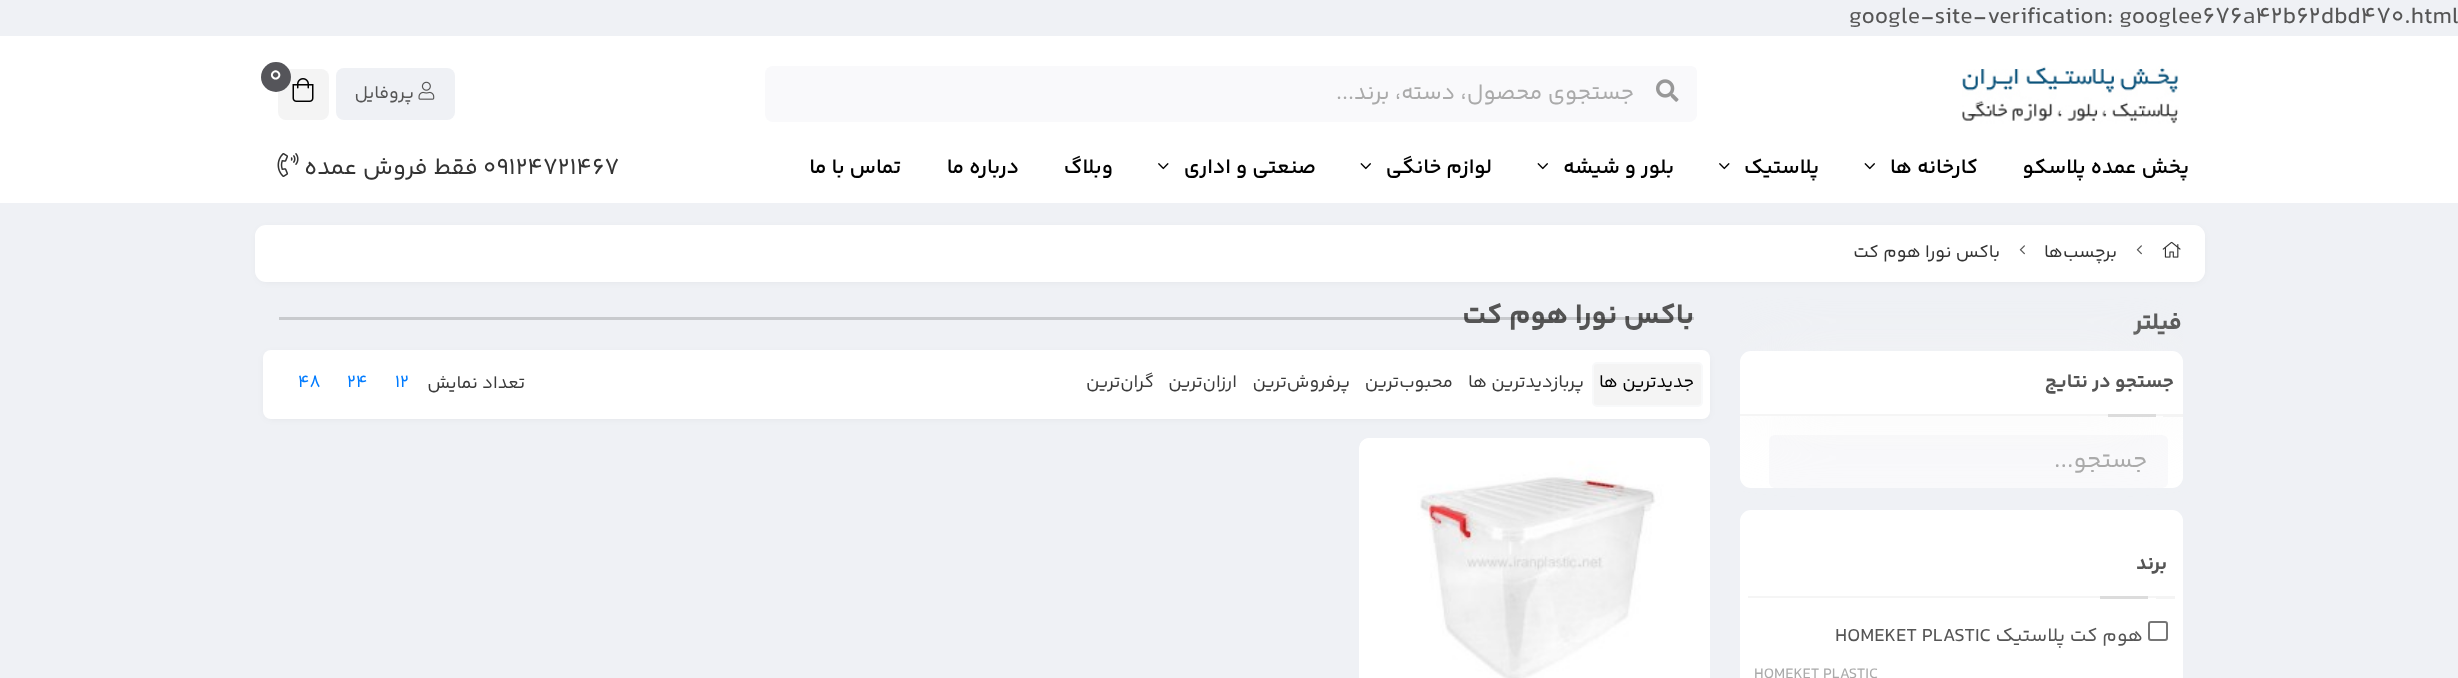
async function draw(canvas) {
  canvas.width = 2458
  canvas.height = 678
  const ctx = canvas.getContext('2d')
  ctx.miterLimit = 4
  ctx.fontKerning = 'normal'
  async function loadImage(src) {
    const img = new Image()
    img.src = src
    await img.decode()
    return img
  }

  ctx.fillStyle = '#eff1f5'
  ctx.fillRect(0, 0, 2458, 678)
  ctx.font = '24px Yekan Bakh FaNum'
  ctx.fillStyle = '#555'
  ctx.fillText('google-site-verification: googlee676a42b62dbd470.html', 1849, 23)
  ctx.fillStyle = '#fff'
  ctx.fillRect(0, 36, 2458, 167)
  ctx.drawImage(await loadImage('image0.png'), 1962, 66, 217, 58)
  ctx.fillStyle = '#f9f9fb'
  ctx.beginPath()
  ctx.roundRect(1661, 66, 36, 56, [0, 8, 8, 0])
  ctx.fill()
  ctx.beginPath()
  ctx.roundRect(765, 66, 903, 56, 8)
  ctx.fill()
  ctx.beginPath()
  ctx.roundRect(1638, 66, 59, 54, [0, 6, 6, 0])
  ctx.fill()
  ctx.drawImage(await loadImage('image1.png'), 1656, 79, 23, 23)
  ctx.direction = 'rtl'
  ctx.font = '22.5px Yekan Bakh FaNum'
  ctx.fillStyle = '#aaa'
  ctx.fillText('جستجوی محصول، دسته، برند...', 1634, 99)
  ctx.fillStyle = '#f4f4f4'
  ctx.beginPath()
  ctx.roundRect(278, 69, 51, 51, 8)
  ctx.fill()
  ctx.fillStyle = '#55555a'
  ctx.beginPath()
  ctx.arc(276, 77, 15, 0, 2 * Math.PI)
  ctx.fill()
  ctx.direction = 'ltr'
  ctx.font = '24px Yekan Bakh FaNum'
  ctx.fillStyle = '#fff'
  ctx.fillText('0', 269, 82)
  ctx.drawImage(await loadImage('image2.png'), 292, 78, 22, 24)
  ctx.fillStyle = '#eff1f5'
  ctx.beginPath()
  ctx.roundRect(336, 68, 119, 52, 8)
  ctx.fill()
  ctx.drawImage(await loadImage('image3.png'), 418, 81, 17, 19)
  ctx.direction = 'rtl'
  ctx.font = '18px Yekan Bakh FaNum'
  ctx.fillStyle = '#555'
  ctx.fillText('پروفایل', 414, 98)
  ctx.font = '600 21px Yekan Bakh FaNum'
  ctx.fillStyle = '#000'
  ctx.fillText('پخش عمده پلاسکو', 2189, 173)
  ctx.fillText('کارخانه ها', 1978, 173)
  ctx.drawImage(await loadImage('image4.png'), 1864, 163, 11, 7)
  ctx.fillText('پلاستیک', 1819, 173)
  ctx.drawImage(await loadImage('image5.png'), 1719, 163, 11, 7)
  ctx.fillText('بلور و شیشه', 1674, 173)
  ctx.drawImage(await loadImage('image4.png'), 1537, 163, 11, 7)
  ctx.fillText('لوازم خانگی', 1492, 173)
  ctx.drawImage(await loadImage('image4.png'), 1360, 163, 11, 7)
  ctx.fillText('صنعتی و اداری', 1316, 173)
  ctx.drawImage(await loadImage('image5.png'), 1158, 163, 11, 7)
  ctx.fillText('وبلاگ', 1113, 173)
  ctx.fillText('درباره ما', 1019, 173)
  ctx.fillText('تماس با ما', 901, 173)
  ctx.direction = 'ltr'
  ctx.font = '24px Yekan Bakh FaNum'
  ctx.fillStyle = '#333'
  ctx.fillText('09124721467', 483, 174)
  ctx.direction = 'rtl'
  ctx.fillText('فقط فروش عمده', 478, 174)
  ctx.drawImage(await loadImage('image6.png'), 277, 153, 22, 24)
  ctx.fillStyle = '#0000001a'
  ctx.filter = 'blur(5px)'
  ctx.beginPath()
  ctx.roundRect(260, 231, 1941, 48, 6)
  ctx.fill()
  ctx.filter = 'none'
  ctx.fillStyle = '#fff'
  ctx.beginPath()
  ctx.roundRect(255, 225, 1950, 57, 11)
  ctx.fill()
  ctx.drawImage(await loadImage('image7.png'), 2162, 241, 19, 17)
  ctx.drawImage(await loadImage('image8.png'), 2136, 245, 6, 10)
  ctx.font = '18px Yekan Bakh FaNum'
  ctx.fillStyle = '#333'
  ctx.fillText('برچسب‌ها', 2117, 257)
  ctx.drawImage(await loadImage('image8.png'), 2019, 245, 6, 10)
  ctx.fillText('باکس نورا هوم کت', 2000, 257)
  ctx.font = 'bold 24px Yekan Bakh FaNum'
  ctx.fillStyle = '#555'
  ctx.fillText('فیلتر', 2182, 329)
  ctx.fillStyle = '#fff'
  ctx.beginPath()
  ctx.roundRect(1740, 351, 443, 137, 11)
  ctx.fill()
  ctx.fillStyle = '#f9f9fb'
  ctx.beginPath()
  ctx.roundRect(1769, 435, 399, 53, 6)
  ctx.fill()
  ctx.fillStyle = '#fff'
  ctx.beginPath()
  ctx.roundRect(1740, 510, 443, 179, 11)
  ctx.fill()
  ctx.save()
  ctx.beginPath()
  ctx.rect(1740, 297, 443, 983)
  ctx.clip()
  ctx.beginPath()
  ctx.moveTo(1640, 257)
  ctx.lineTo(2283, 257)
  ctx.lineTo(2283, 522)
  ctx.lineTo(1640, 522)
  ctx.closePath()
  ctx.moveTo(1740, 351)
  ctx.lineTo(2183, 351)
  ctx.lineTo(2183, 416)
  ctx.lineTo(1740, 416)
  ctx.closePath()
  ctx.clip('evenodd')
  ctx.fillStyle = '#f5f5f5'
  ctx.filter = 'blur(37.5px)'
  ctx.beginPath()
  ctx.rect(1754, 371, 415, 37)
  ctx.fill()
  ctx.filter = 'none'
  ctx.restore()
  ctx.fillStyle = '#f5f5f5'
  ctx.fillRect(1740, 414, 423, 2)
  ctx.font = 'bold 19.5px Yekan Bakh FaNum'
  ctx.fillStyle = '#555'
  ctx.fillText('جستجو در نتایج', 2174, 387)
  ctx.fillStyle = '#f4f4f4'
  ctx.fillRect(2163, 414, 20, 3)
  ctx.fillStyle = '#dcdcdc'
  ctx.fillRect(2108, 414, 48, 3)
  ctx.font = '24px Yekan Bakh FaNum'
  ctx.fillStyle = '#aaa'
  ctx.fillText('جستجو...', 2147, 467)
  ctx.fillStyle = '#f5f5f5'
  ctx.fillRect(1748, 596, 408, 2)
  ctx.font = 'bold 19.5px Yekan Bakh FaNum'
  ctx.fillStyle = '#555'
  ctx.fillText('برند', 2167, 569)
  ctx.fillStyle = '#f4f4f4'
  ctx.fillRect(2156, 596, 19, 3)
  ctx.fillStyle = '#dcdcdc'
  ctx.fillRect(2100, 596, 48, 3)
  ctx.beginPath()
  ctx.roundRect(2149, 622, 18, 18, 2)
  ctx.strokeStyle = '#767676'
  ctx.lineWidth = 2
  ctx.stroke()
  ctx.font = '19.5px Yekan Bakh FaNum'
  ctx.fillStyle = '#555'
  ctx.fillText('هوم کت پلاستیک', 2143, 641)
  ctx.direction = 'ltr'
  ctx.fillText('HOMEKET PLASTIC', 1835, 641)
  ctx.font = '15.5px Yekan Bakh FaNum'
  ctx.fillStyle = '#aaa'
  ctx.fillText('HOMEKET PLASTIC', 1754, 678)
  ctx.direction = 'rtl'
  ctx.font = 'bold 28.75px Yekan Bakh FaNum'
  ctx.fillStyle = '#555'
  ctx.fillText('باکس نورا هوم کت', 1694, 323)
  ctx.fillStyle = '#00000029'
  ctx.fillRect(279, 317, 1415, 3)
  ctx.fillStyle = '#0000001a'
  ctx.filter = 'blur(5px)'
  ctx.beginPath()
  ctx.roundRect(267, 356, 1439, 60, 3)
  ctx.fill()
  ctx.filter = 'none'
  ctx.fillStyle = '#fff'
  ctx.beginPath()
  ctx.roundRect(263, 350, 1447, 69, 8)
  ctx.fill()
  ctx.fillStyle = '#f4f4f4'
  ctx.beginPath()
  ctx.roundRect(1593, 363, 109, 43, 4)
  ctx.fill()
  ctx.strokeStyle = '#f8f9fa'
  ctx.stroke()
  ctx.font = '18px Yekan Bakh FaNum'
  ctx.fillStyle = '#000'
  ctx.fillText('جدیدترین ها', 1694, 387)
  ctx.fillStyle = '#3b3b3b'
  ctx.fillText('پربازدیدترین ها', 1584, 387)
  ctx.fillText('محبوب‌‌ترین', 1453, 387)
  ctx.fillText('پرفروش‌ترین', 1350, 387)
  ctx.fillText('ارزان‌ترین', 1237, 387)
  ctx.fillText('گران‌ترین', 1154, 387)
  ctx.fillText('تعداد نمایش', 525, 388)
  ctx.direction = 'ltr'
  ctx.fillStyle = '#007bff'
  ctx.fillText('12', 395, 387)
  ctx.fillText('24', 347, 387)
  ctx.fillText('48', 298, 387)
  ctx.fillStyle = '#fff'
  ctx.beginPath()
  ctx.roundRect(1359, 438, 351, 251, 11)
  ctx.fill()
  ctx.drawImage(await loadImage('image9.png'), 1360, 438, 349, 240)
}

draw(document.querySelector('canvas'))
